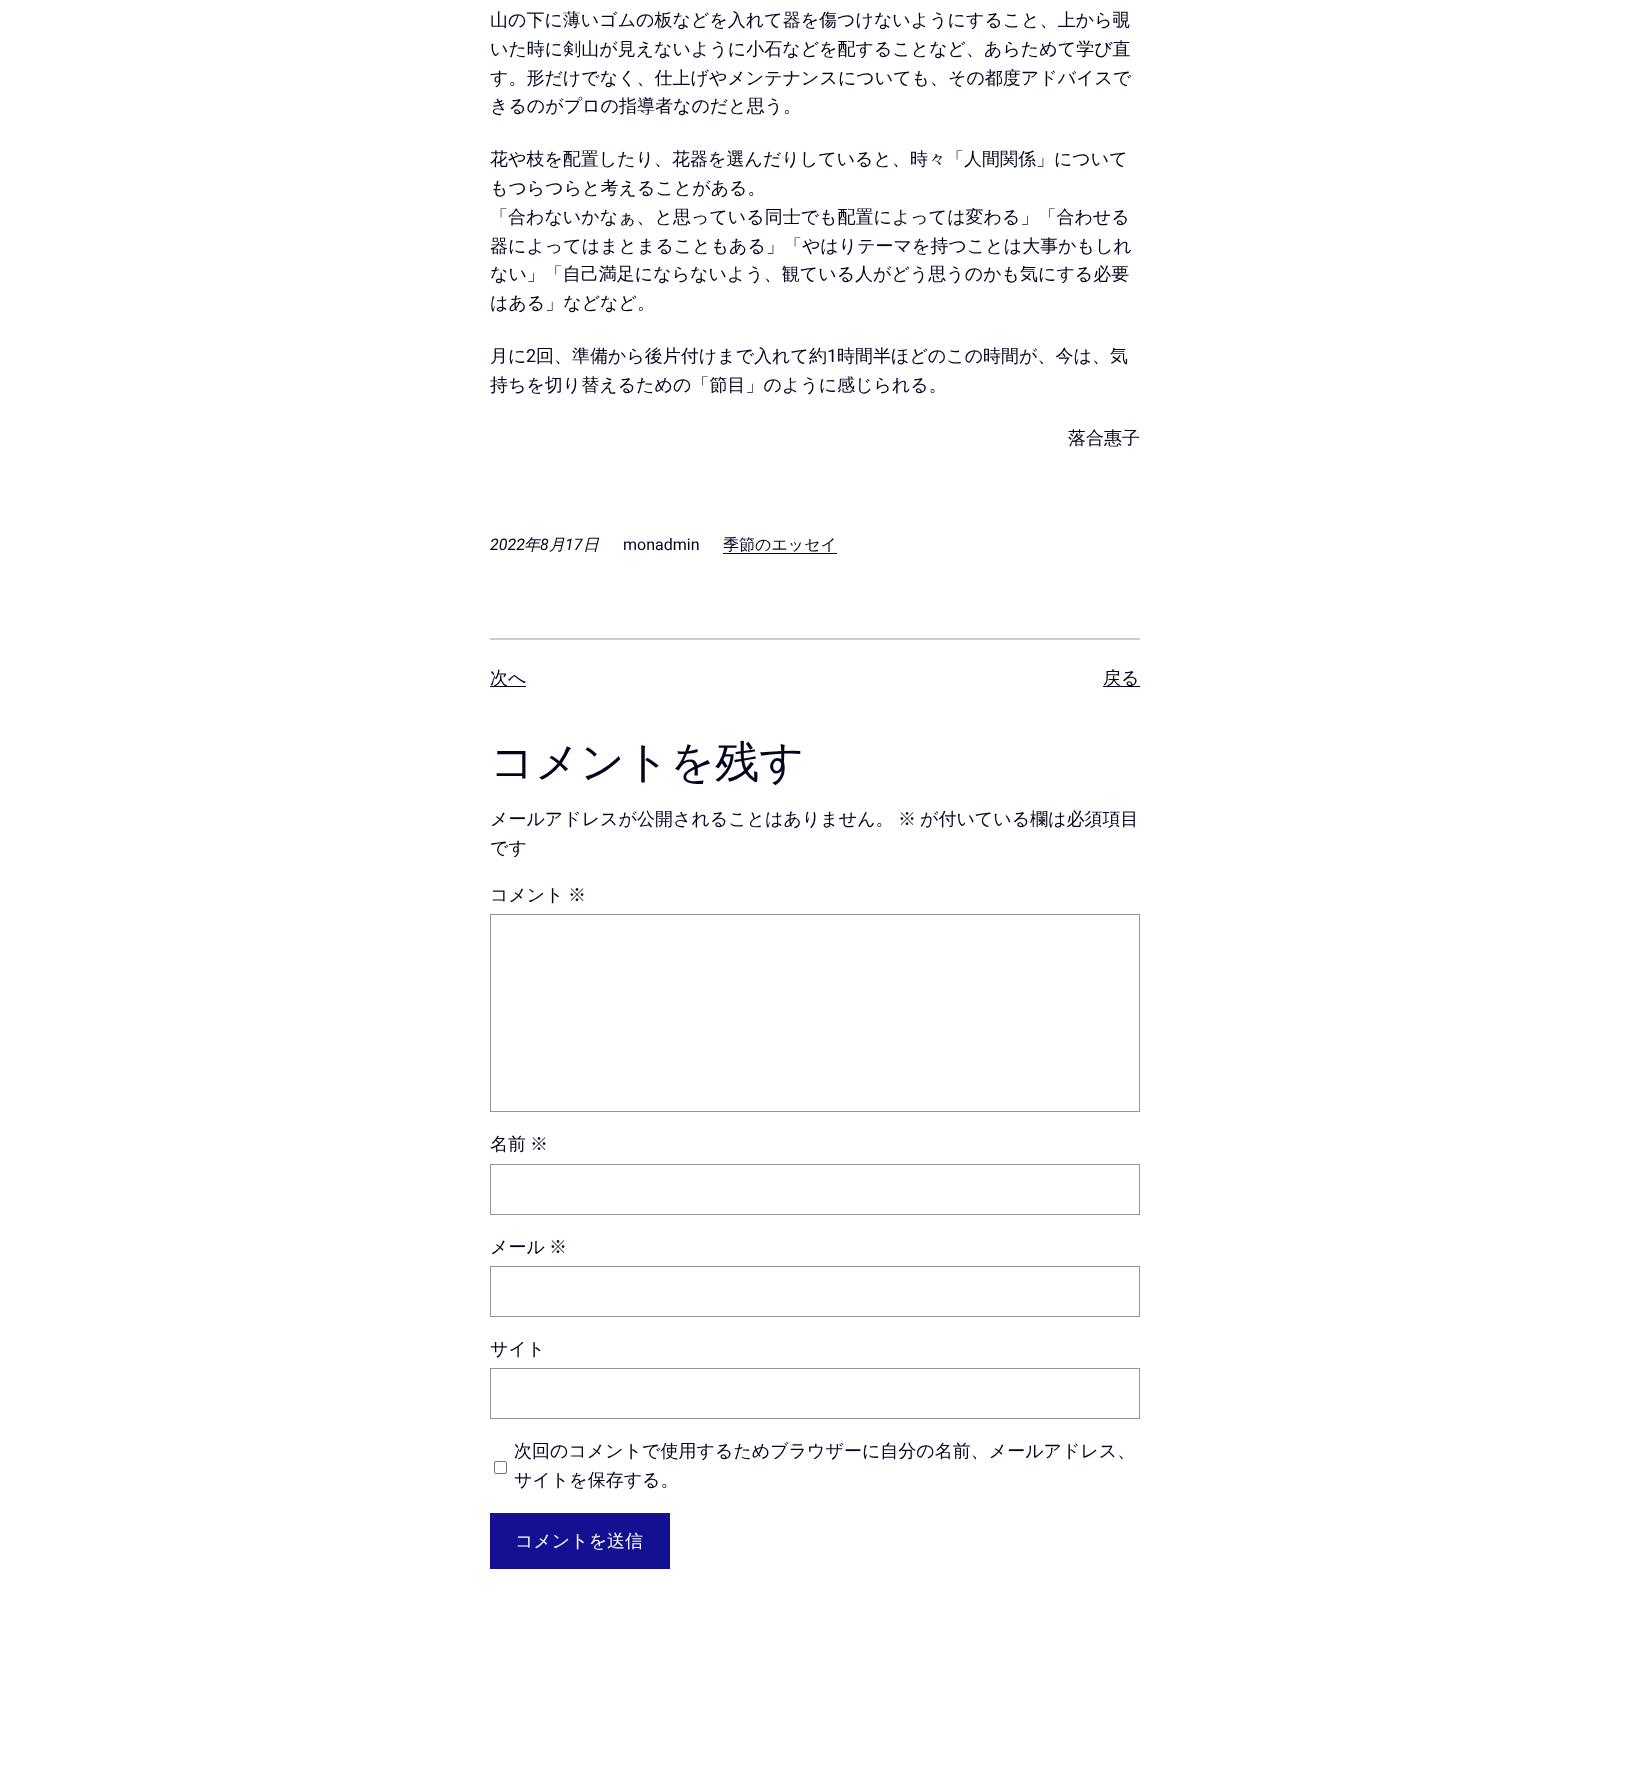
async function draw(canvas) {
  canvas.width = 1629
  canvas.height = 1775
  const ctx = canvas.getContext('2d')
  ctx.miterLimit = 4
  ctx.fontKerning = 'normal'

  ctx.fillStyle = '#fff'
  ctx.fillRect(0, 0, 1629, 1775)
  ctx.font = '500 18px WenQuanYi Zen Hei'
  ctx.fillStyle = '#00041d'
  ctx.fillText('山の下に薄いゴムの板などを入れて器を傷つけないようにすること、上から覗', 490, 26)
  ctx.fillText('いた時に剣山が見えないように小石などを配することなど、あらためて学び直', 490, 55)
  ctx.fillText('す。形だけでなく、仕上げやメンテナンスについても、その都度アドバイスで', 490, 84)
  ctx.fillText('きるのがプロの指導者なのだと思う。', 490, 112)
  ctx.fillText('花や枝を配置したり、花器を選んだりしていると、時々「人間関係」について', 490, 165)
  ctx.fillText('もつらつらと考えることがある。', 490, 194)
  ctx.fillText('「合わないかなぁ、と思っている同士でも配置によっては変わる」「合わせる', 490, 223)
  ctx.fillText('器によってはまとまることもある」「やはりテーマを持つことは大事かもしれ', 490, 252)
  ctx.fillText('ない」「自己満足にならないよう、観ている人がどう思うのかも気にする必要', 490, 280)
  ctx.fillText('はある」などなど。', 490, 309)
  ctx.fillText('月に', 490, 362)
  ctx.font = '18px Roboto'
  ctx.fillText('2', 526, 362)
  ctx.font = '500 18px WenQuanYi Zen Hei'
  ctx.fillText('回、準備から後片付けまで入れて約', 536, 362)
  ctx.font = '18px Roboto'
  ctx.fillText('1', 827, 362)
  ctx.font = '500 18px WenQuanYi Zen Hei'
  ctx.fillText('時間半ほどのこの時間が、今は、気', 837, 362)
  ctx.fillText('持ちを切り替えるための「節目」のように感じられる。', 490, 391)
  ctx.fillText('落合惠子', 1068, 444)
  ctx.font = 'italic 16px Roboto'
  ctx.fillText('2022', 490, 550)
  ctx.font = 'italic 500 16px WenQuanYi Zen Hei'
  ctx.fillText('年', 524, 550)
  ctx.font = 'italic 16px Roboto'
  ctx.fillText('8', 540, 550)
  ctx.font = 'italic 500 16px WenQuanYi Zen Hei'
  ctx.fillText('月', 549, 550)
  ctx.font = 'italic 16px Roboto'
  ctx.fillText('17', 565, 550)
  ctx.font = 'italic 500 16px WenQuanYi Zen Hei'
  ctx.fillText('日', 583, 550)
  ctx.font = '16px Roboto'
  ctx.fillText('monadmin', 623, 550)
  ctx.font = '500 16px WenQuanYi Zen Hei'
  ctx.fillText('季節のエッセイ', 723, 550)
  ctx.fillRect(723, 553, 114, 1)
  ctx.fillStyle = '#ccc'
  ctx.fillRect(490, 638, 650, 2)
  ctx.fillStyle = '#00041d'
  ctx.fillRect(490, 686, 36, 1)
  ctx.font = '500 18px WenQuanYi Zen Hei'
  ctx.fillText('次へ', 490, 684)
  ctx.fillRect(1103, 686, 37, 1)
  ctx.fillText('戻る', 1103, 684)
  ctx.font = '500 44px WenQuanYi Zen Hei'
  ctx.fillText('コメントを残す', 490, 777)
  ctx.font = '500 18px WenQuanYi Zen Hei'
  ctx.fillText('メールアドレスが公開されることはありません。', 490, 825)
  ctx.fillText('※', 898, 825)
  ctx.fillText('が付いている欄は必須項目', 920, 825)
  ctx.fillText('です', 490, 854)
  ctx.fillText('コメント', 490, 901)
  ctx.fillText('※', 568, 901)
  ctx.strokeStyle = '#949494'
  ctx.strokeRect(490.5, 914.5, 649, 197)
  ctx.fillText('名前', 490, 1150)
  ctx.fillText('※', 530, 1150)
  ctx.strokeRect(490.5, 1164.5, 649, 50)
  ctx.fillText('メール', 490, 1253)
  ctx.fillText('※', 549, 1253)
  ctx.strokeRect(490.5, 1266.5, 649, 50)
  ctx.fillText('サイト', 490, 1355)
  ctx.strokeRect(490.5, 1368.5, 649, 50)
  ctx.beginPath()
  ctx.roundRect(494.5, 1461.5, 12, 12, 1.5)
  ctx.strokeStyle = '#767676'
  ctx.stroke()
  ctx.fillText('次回のコメントで使用するためブラウザーに自分の名前、メールアドレス、', 514, 1457)
  ctx.fillText('サイトを保存する。', 514, 1486)
  ctx.fillStyle = '#131191'
  ctx.fillRect(490, 1513, 180, 56)
  ctx.fillStyle = '#fff'
  ctx.fillText('コメントを送信', 515, 1547)
}

draw(document.querySelector('canvas'))
